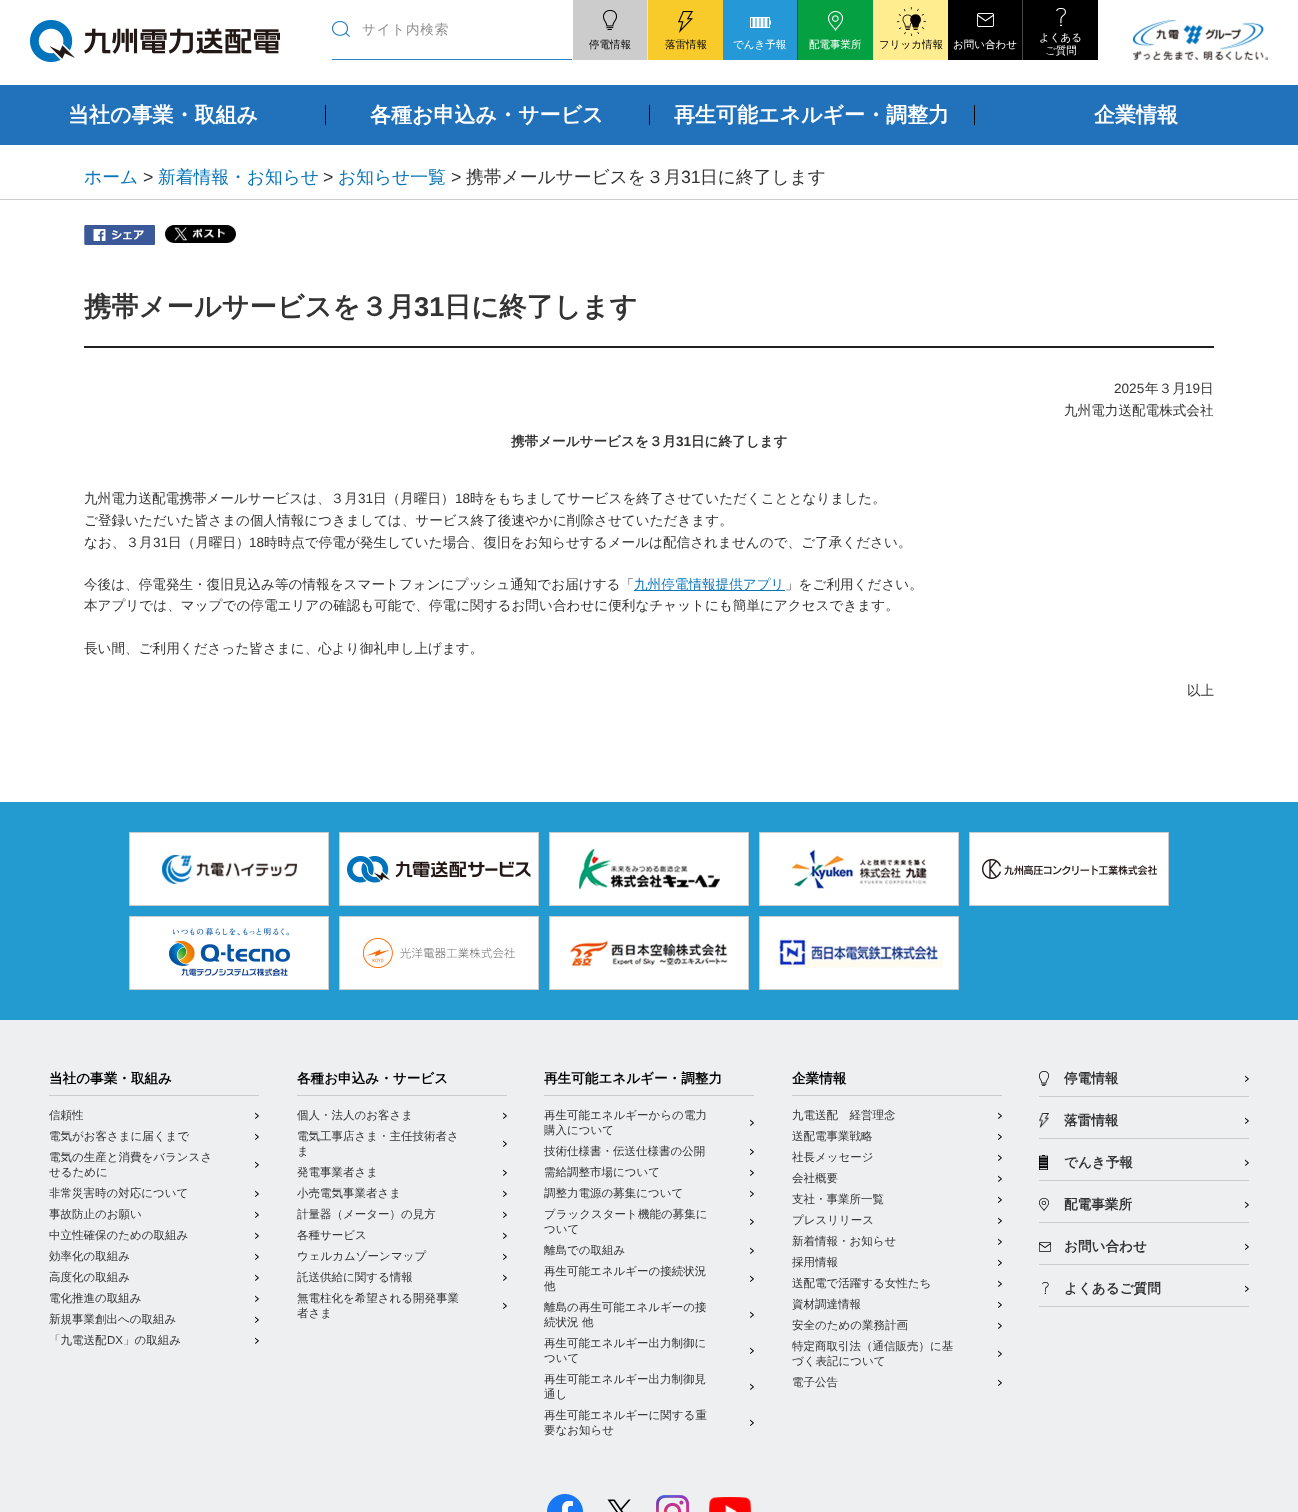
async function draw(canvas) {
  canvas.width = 1298
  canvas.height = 1512
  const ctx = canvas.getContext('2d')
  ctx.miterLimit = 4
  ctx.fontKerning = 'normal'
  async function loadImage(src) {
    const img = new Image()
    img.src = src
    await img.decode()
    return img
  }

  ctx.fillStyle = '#fff'
  ctx.fillRect(0, 0, 1298, 1512)
  ctx.drawImage(await loadImage('image0.png'), 30, 20, 250, 42)
  ctx.drawImage(await loadImage('image1.png'), 332, 21, 18, 16)
  ctx.fillStyle = '#2a84c6'
  ctx.fillRect(332, 59, 240, 1)
  ctx.letterSpacing = '0.75px'
  ctx.font = '500 13.6px WenQuanYi Zen Hei'
  ctx.fillStyle = '#919191'
  ctx.fillText('サイト内検索', 362, 34)
  ctx.drawImage(await loadImage('image2.png'), 1133, 20, 135, 40)
  ctx.fillStyle = '#ccc'
  ctx.fillRect(573, 0, 74, 60)
  ctx.drawImage(await loadImage('image3.png'), 603, 10, 14, 20)
  ctx.fillStyle = '#e5e5e5'
  ctx.fillRect(647, 0, 1, 60)
  ctx.letterSpacing = '0px'
  ctx.font = '500 10.5px WenQuanYi Zen Hei'
  ctx.fillStyle = '#000'
  ctx.fillText('停電情報', 589, 48)
  ctx.fillStyle = '#f8cb2a'
  ctx.fillRect(648, 0, 75, 60)
  ctx.drawImage(await loadImage('image4.png'), 678, 11, 15, 22)
  ctx.fillStyle = '#000'
  ctx.fillText('落雷情報', 665, 48)
  ctx.fillStyle = '#2599d7'
  ctx.fillRect(723, 0, 74, 60)
  ctx.drawImage(await loadImage('image5.png'), 750, 17, 21, 11)
  ctx.fillStyle = '#006429'
  ctx.fillRect(797, 0, 1, 60)
  ctx.fillStyle = '#fff'
  ctx.fillText('でんき予報', 733, 48)
  ctx.fillStyle = '#04a041'
  ctx.fillRect(798, 0, 75, 60)
  ctx.drawImage(await loadImage('image6.png'), 828, 11, 15, 20)
  ctx.fillStyle = '#fff'
  ctx.fillText('配電事業所', 809, 48)
  ctx.fillStyle = '#ffed8f'
  ctx.fillRect(873, 0, 75, 60)
  ctx.drawImage(await loadImage('image7.png'), 896, 7, 30, 30)
  ctx.fillStyle = '#000'
  ctx.fillText('フリッカ情報', 879, 48)
  ctx.fillRect(948, 0, 74, 60)
  ctx.drawImage(await loadImage('image8.png'), 977, 13, 17, 14)
  ctx.fillStyle = '#494949'
  ctx.fillRect(1022, 0, 1, 60)
  ctx.fillStyle = '#fff'
  ctx.fillText('お問い合わせ', 953, 48)
  ctx.fillStyle = '#000'
  ctx.fillRect(1023, 0, 75, 60)
  ctx.drawImage(await loadImage('image9.png'), 1056, 8, 10, 18)
  ctx.fillStyle = '#fff'
  ctx.fillText('よくある', 1039, 41)
  ctx.fillText('ご質問', 1045, 54)
  ctx.fillStyle = '#2272bb'
  ctx.fillRect(0, 85, 1298, 60)
  ctx.font = 'bold 21px WenQuanYi Zen Hei'
  ctx.fillStyle = '#fff'
  ctx.fillText('当社の事業・取組み', 68, 122)
  ctx.fillStyle = '#000'
  ctx.fillRect(325, 105, 1, 20)
  ctx.fillStyle = '#fff'
  ctx.fillText('各種お申込み・サービス', 370, 122)
  ctx.fillStyle = '#000'
  ctx.fillRect(649, 105, 1, 20)
  ctx.fillStyle = '#fff'
  ctx.fillText('再生可能エネルギー・調整力', 674, 122)
  ctx.fillStyle = '#000'
  ctx.fillRect(974, 105, 1, 20)
  ctx.fillStyle = '#fff'
  ctx.fillText('企業情報', 1094, 122)
  ctx.font = '500 17.75px WenQuanYi Zen Hei'
  ctx.fillStyle = '#0975b9'
  ctx.fillText('ホーム', 84, 183)
  ctx.font = '17.75px Liberation Sans'
  ctx.fillStyle = '#333'
  ctx.fillText('>', 143, 183)
  ctx.font = '500 17.75px WenQuanYi Zen Hei'
  ctx.fillStyle = '#0975b9'
  ctx.fillText('新着情報・お知らせ', 158, 183)
  ctx.font = '17.75px Liberation Sans'
  ctx.fillStyle = '#333'
  ctx.fillText('>', 323, 183)
  ctx.font = '500 17.75px WenQuanYi Zen Hei'
  ctx.fillStyle = '#0975b9'
  ctx.fillText('お知らせ一覧', 338, 183)
  ctx.font = '17.75px Liberation Sans'
  ctx.fillStyle = '#333'
  ctx.fillText('>', 451, 183)
  ctx.font = '500 17.75px WenQuanYi Zen Hei'
  ctx.fillText('携帯メールサービスを３月', 466, 183)
  ctx.font = '17.75px Liberation Sans'
  ctx.fillText('31', 681, 183)
  ctx.font = '500 17.75px WenQuanYi Zen Hei'
  ctx.fillText('日に終了します', 700, 183)
  ctx.fillStyle = '#ccc'
  ctx.fillRect(0, 199, 1298, 1)
  ctx.drawImage(await loadImage('image10.png'), 84, 225, 71, 20)
  ctx.drawImage(await loadImage('image11.png'), 165, 225, 71, 18)
  ctx.fillStyle = '#202020'
  ctx.fillRect(84, 346, 1130, 2)
  ctx.font = 'bold 27.25px WenQuanYi Zen Hei'
  ctx.fillStyle = '#333'
  ctx.fillText('携帯メールサービスを３月', 84, 316)
  ctx.font = 'bold 27.25px Liberation Sans'
  ctx.fillText('31', 414, 316)
  ctx.font = 'bold 27.25px WenQuanYi Zen Hei'
  ctx.fillText('日に終了します', 444, 316)
  ctx.font = '13.6px Liberation Sans'
  ctx.fillText('2025', 1114, 393)
  ctx.font = '500 13.6px WenQuanYi Zen Hei'
  ctx.fillText('年３月', 1145, 393)
  ctx.font = '13.6px Liberation Sans'
  ctx.fillText('19', 1185, 393)
  ctx.font = '500 13.6px WenQuanYi Zen Hei'
  ctx.fillText('日', 1200, 393)
  ctx.fillText('九州電力送配電株式会社', 1064, 415)
  ctx.font = 'bold 13.6px WenQuanYi Zen Hei'
  ctx.fillText('携帯メールサービスを３月', 511, 446)
  ctx.font = 'bold 13.6px Liberation Sans'
  ctx.fillText('31', 676, 446)
  ctx.font = 'bold 13.6px WenQuanYi Zen Hei'
  ctx.fillText('日に終了します', 691, 446)
  ctx.font = '500 13.6px WenQuanYi Zen Hei'
  ctx.fillText('九州電力送配電携帯メールサービスは、３月', 84, 503)
  ctx.font = '13.6px Liberation Sans'
  ctx.fillText('31', 358, 503)
  ctx.font = '500 13.6px WenQuanYi Zen Hei'
  ctx.fillText('日（月曜日）', 373, 503)
  ctx.font = '13.6px Liberation Sans'
  ctx.fillText('18', 455, 503)
  ctx.font = '500 13.6px WenQuanYi Zen Hei'
  ctx.fillText('時をもちましてサービスを終了させていただくこととなりました。', 470, 503)
  ctx.fillText('ご登録いただいた皆さまの個人情報につきましては、サービス終了後速やかに削除させていただきます。', 84, 525)
  ctx.fillText('なお、３月', 84, 547)
  ctx.font = '13.6px Liberation Sans'
  ctx.fillText('31', 153, 547)
  ctx.font = '500 13.6px WenQuanYi Zen Hei'
  ctx.fillText('日（月曜日）', 168, 547)
  ctx.font = '13.6px Liberation Sans'
  ctx.fillText('18', 249, 547)
  ctx.font = '500 13.6px WenQuanYi Zen Hei'
  ctx.fillText('時時点で停電が発生していた場合、復旧をお知らせするメールは配信されませんので、ご了承ください。', 264, 547)
  ctx.fillText('今後は、停電発生・復旧見込み等の情報をスマートフォンにプッシュ通知でお届けする「', 84, 589)
  ctx.fillStyle = '#0975b9'
  ctx.fillRect(634, 590, 151, 1)
  ctx.fillText('九州停電情報提供アプリ', 634, 589)
  ctx.fillStyle = '#333'
  ctx.fillText('」をご利用ください。', 785, 589)
  ctx.fillText('本アプリでは、マップでの停電エリアの確認も可能で、停電に関するお問い合わせに便利なチャットにも簡単にアクセスできます。', 84, 610)
  ctx.fillText('長い間、ご利用くださった皆さまに、心より御礼申し上げます。', 84, 653)
  ctx.fillText('以上', 1187, 695)
  ctx.fillStyle = '#239ad0'
  ctx.fillRect(0, 802, 1298, 218)
  ctx.drawImage(await loadImage('image12.png'), 129, 832, 200, 74)
  ctx.drawImage(await loadImage('image13.png'), 339, 832, 200, 74)
  ctx.drawImage(await loadImage('image14.png'), 549, 832, 200, 74)
  ctx.drawImage(await loadImage('image15.png'), 759, 832, 200, 74)
  ctx.drawImage(await loadImage('image16.png'), 969, 832, 200, 74)
  ctx.drawImage(await loadImage('image17.png'), 129, 916, 200, 74)
  ctx.drawImage(await loadImage('image18.png'), 339, 916, 200, 74)
  ctx.drawImage(await loadImage('image19.png'), 549, 916, 200, 74)
  ctx.drawImage(await loadImage('image20.png'), 759, 916, 200, 74)
  ctx.fillStyle = '#edeff0'
  ctx.fillRect(0, 1020, 1298, 492)
  ctx.fillStyle = '#cbcbcb'
  ctx.fillRect(49, 1095, 210, 1)
  ctx.font = 'bold 13.6px WenQuanYi Zen Hei'
  ctx.fillStyle = '#000'
  ctx.fillText('当社の事業・取組み', 49, 1083)
  ctx.drawImage(await loadImage('image21.png'), 255, 1112, 4, 7)
  ctx.font = '500 11.5px WenQuanYi Zen Hei'
  ctx.fillStyle = '#333'
  ctx.fillText('信頼性', 49, 1119)
  ctx.drawImage(await loadImage('image21.png'), 255, 1133, 4, 7)
  ctx.fillText('電気がお客さまに届くまで', 49, 1140)
  ctx.drawImage(await loadImage('image21.png'), 255, 1161, 4, 7)
  ctx.fillText('電気の生産と消費をバランスさ', 49, 1161)
  ctx.fillText('せるために', 49, 1176)
  ctx.drawImage(await loadImage('image21.png'), 255, 1190, 4, 7)
  ctx.fillText('非常災害時の対応について', 49, 1197)
  ctx.drawImage(await loadImage('image21.png'), 255, 1211, 4, 7)
  ctx.fillText('事故防止のお願い', 49, 1218)
  ctx.drawImage(await loadImage('image21.png'), 255, 1232, 4, 7)
  ctx.fillText('中立性確保のための取組み', 49, 1239)
  ctx.drawImage(await loadImage('image21.png'), 255, 1253, 4, 7)
  ctx.fillText('効率化の取組み', 49, 1260)
  ctx.drawImage(await loadImage('image21.png'), 255, 1274, 4, 7)
  ctx.fillText('高度化の取組み', 49, 1281)
  ctx.drawImage(await loadImage('image21.png'), 255, 1295, 4, 7)
  ctx.fillText('電化推進の取組み', 49, 1302)
  ctx.drawImage(await loadImage('image21.png'), 255, 1316, 4, 7)
  ctx.fillText('新規事業創出への取組み', 49, 1323)
  ctx.drawImage(await loadImage('image21.png'), 255, 1337, 4, 7)
  ctx.fillText('「九電送配', 49, 1344)
  ctx.font = '11.5px Liberation Sans'
  ctx.fillText('DX', 107, 1344)
  ctx.font = '500 11.5px WenQuanYi Zen Hei'
  ctx.fillText('」の取組み', 123, 1344)
  ctx.fillStyle = '#cbcbcb'
  ctx.fillRect(297, 1095, 210, 1)
  ctx.font = 'bold 13.6px WenQuanYi Zen Hei'
  ctx.fillStyle = '#000'
  ctx.fillText('各種お申込み・サービス', 297, 1083)
  ctx.drawImage(await loadImage('image22.png'), 503, 1112, 4, 7)
  ctx.font = '500 11.5px WenQuanYi Zen Hei'
  ctx.fillStyle = '#333'
  ctx.fillText('個人・法人のお客さま', 297, 1119)
  ctx.drawImage(await loadImage('image22.png'), 503, 1140, 4, 7)
  ctx.fillText('電気工事店さま・主任技術者さ', 297, 1140)
  ctx.fillText('ま', 297, 1155)
  ctx.drawImage(await loadImage('image22.png'), 503, 1169, 4, 7)
  ctx.fillText('発電事業者さま', 297, 1176)
  ctx.drawImage(await loadImage('image22.png'), 503, 1190, 4, 7)
  ctx.fillText('小売電気事業者さま', 297, 1197)
  ctx.drawImage(await loadImage('image22.png'), 503, 1211, 4, 7)
  ctx.fillText('計量器（メーター）の見方', 297, 1218)
  ctx.drawImage(await loadImage('image22.png'), 503, 1232, 4, 7)
  ctx.fillText('各種サービス', 297, 1239)
  ctx.drawImage(await loadImage('image22.png'), 503, 1253, 4, 7)
  ctx.fillText('ウェルカムゾーンマップ', 297, 1260)
  ctx.drawImage(await loadImage('image22.png'), 503, 1274, 4, 7)
  ctx.fillText('託送供給に関する情報', 297, 1281)
  ctx.drawImage(await loadImage('image22.png'), 503, 1302, 4, 7)
  ctx.fillText('無電柱化を希望される開発事業', 297, 1302)
  ctx.fillText('者さま', 297, 1317)
  ctx.fillStyle = '#cbcbcb'
  ctx.fillRect(544, 1095, 210, 1)
  ctx.font = 'bold 13.6px WenQuanYi Zen Hei'
  ctx.fillStyle = '#000'
  ctx.fillText('再生可能エネルギー・調整力', 544, 1083)
  ctx.drawImage(await loadImage('image22.png'), 750, 1119, 4, 7)
  ctx.font = '500 11.5px WenQuanYi Zen Hei'
  ctx.fillStyle = '#333'
  ctx.fillText('再生可能エネルギーからの電力', 544, 1119)
  ctx.fillText('購入について', 544, 1134)
  ctx.drawImage(await loadImage('image22.png'), 750, 1148, 4, 7)
  ctx.fillText('技術仕様書・伝送仕様書の公開', 544, 1155)
  ctx.drawImage(await loadImage('image22.png'), 750, 1169, 4, 7)
  ctx.fillText('需給調整市場について', 544, 1176)
  ctx.drawImage(await loadImage('image22.png'), 750, 1190, 4, 7)
  ctx.fillText('調整力電源の募集について', 544, 1197)
  ctx.drawImage(await loadImage('image22.png'), 750, 1218, 4, 7)
  ctx.fillText('ブラックスタート機能の募集に', 544, 1218)
  ctx.fillText('ついて', 544, 1233)
  ctx.drawImage(await loadImage('image22.png'), 750, 1247, 4, 7)
  ctx.fillText('離島での取組み', 544, 1254)
  ctx.drawImage(await loadImage('image22.png'), 750, 1275, 4, 7)
  ctx.fillText('再生可能エネルギーの接続状況', 544, 1275)
  ctx.fillText('他', 544, 1290)
  ctx.drawImage(await loadImage('image22.png'), 750, 1311, 4, 7)
  ctx.fillText('離島の再生可能エネルギーの接', 544, 1311)
  ctx.fillText('続状況 他', 544, 1326)
  ctx.drawImage(await loadImage('image22.png'), 750, 1347, 4, 7)
  ctx.fillText('再生可能エネルギー出力制御に', 544, 1347)
  ctx.fillText('ついて', 544, 1362)
  ctx.drawImage(await loadImage('image22.png'), 750, 1383, 4, 7)
  ctx.fillText('再生可能エネルギー出力制御見', 544, 1383)
  ctx.fillText('通し', 544, 1398)
  ctx.drawImage(await loadImage('image22.png'), 750, 1419, 4, 7)
  ctx.fillText('再生可能エネルギーに関する重', 544, 1419)
  ctx.fillText('要なお知らせ', 544, 1434)
  ctx.fillStyle = '#cbcbcb'
  ctx.fillRect(792, 1095, 210, 1)
  ctx.font = 'bold 13.6px WenQuanYi Zen Hei'
  ctx.fillStyle = '#000'
  ctx.fillText('企業情報', 792, 1083)
  ctx.drawImage(await loadImage('image22.png'), 998, 1112, 4, 7)
  ctx.font = '500 11.5px WenQuanYi Zen Hei'
  ctx.fillStyle = '#333'
  ctx.fillText('九電送配　経営理念', 792, 1119)
  ctx.drawImage(await loadImage('image22.png'), 998, 1133, 4, 7)
  ctx.fillText('送配電事業戦略', 792, 1140)
  ctx.drawImage(await loadImage('image22.png'), 998, 1154, 4, 7)
  ctx.fillText('社長メッセージ', 792, 1161)
  ctx.drawImage(await loadImage('image22.png'), 998, 1175, 4, 7)
  ctx.fillText('会社概要', 792, 1182)
  ctx.drawImage(await loadImage('image22.png'), 998, 1196, 4, 7)
  ctx.fillText('支社・事業所一覧', 792, 1203)
  ctx.drawImage(await loadImage('image22.png'), 998, 1217, 4, 7)
  ctx.fillText('プレスリリース', 792, 1224)
  ctx.drawImage(await loadImage('image22.png'), 998, 1238, 4, 7)
  ctx.fillText('新着情報・お知らせ', 792, 1245)
  ctx.drawImage(await loadImage('image22.png'), 998, 1259, 4, 7)
  ctx.fillText('採用情報', 792, 1266)
  ctx.drawImage(await loadImage('image22.png'), 998, 1280, 4, 7)
  ctx.fillText('送配電で活躍する女性たち', 792, 1287)
  ctx.drawImage(await loadImage('image22.png'), 998, 1301, 4, 7)
  ctx.fillText('資材調達情報', 792, 1308)
  ctx.drawImage(await loadImage('image22.png'), 998, 1322, 4, 7)
  ctx.fillText('安全のための業務計画', 792, 1329)
  ctx.drawImage(await loadImage('image22.png'), 998, 1350, 4, 7)
  ctx.fillText('特定商取引法（通信販売）に基', 792, 1350)
  ctx.fillText('づく表記について', 792, 1365)
  ctx.drawImage(await loadImage('image22.png'), 998, 1379, 4, 7)
  ctx.fillText('電子公告', 792, 1386)
  ctx.drawImage(await loadImage('image22.png'), 1245, 1075, 4, 7)
  ctx.fillStyle = '#ccc'
  ctx.fillRect(1039, 1096, 210, 1)
  ctx.drawImage(await loadImage('image23.png'), 1039, 1071, 10, 15)
  ctx.font = 'bold 13.6px WenQuanYi Zen Hei'
  ctx.fillStyle = '#333'
  ctx.fillText('停電情報', 1064, 1083)
  ctx.drawImage(await loadImage('image22.png'), 1245, 1117, 4, 7)
  ctx.fillStyle = '#ccc'
  ctx.fillRect(1039, 1138, 210, 1)
  ctx.drawImage(await loadImage('image24.png'), 1039, 1113, 10, 15)
  ctx.fillStyle = '#333'
  ctx.fillText('落雷情報', 1064, 1125)
  ctx.drawImage(await loadImage('image22.png'), 1245, 1159, 4, 7)
  ctx.fillStyle = '#ccc'
  ctx.fillRect(1039, 1180, 210, 1)
  ctx.drawImage(await loadImage('image25.png'), 1039, 1155, 9, 15)
  ctx.fillStyle = '#333'
  ctx.fillText('でんき予報', 1064, 1167)
  ctx.drawImage(await loadImage('image22.png'), 1245, 1201, 4, 7)
  ctx.fillStyle = '#ccc'
  ctx.fillRect(1039, 1222, 210, 1)
  ctx.drawImage(await loadImage('image26.png'), 1039, 1198, 10, 13)
  ctx.fillStyle = '#333'
  ctx.fillText('配電事業所', 1064, 1209)
  ctx.drawImage(await loadImage('image22.png'), 1245, 1243, 4, 7)
  ctx.fillStyle = '#ccc'
  ctx.fillRect(1039, 1264, 210, 1)
  ctx.drawImage(await loadImage('image27.png'), 1039, 1242, 12, 10)
  ctx.fillStyle = '#333'
  ctx.fillText('お問い合わせ', 1064, 1251)
  ctx.drawImage(await loadImage('image22.png'), 1245, 1285, 4, 7)
  ctx.fillStyle = '#ccc'
  ctx.fillRect(1039, 1306, 210, 1)
  ctx.drawImage(await loadImage('image28.png'), 1042, 1282, 7, 12)
  ctx.fillStyle = '#333'
  ctx.fillText('よくあるご質問', 1064, 1293)
  ctx.drawImage(await loadImage('image29.png'), 547, 1494, 36, 18)
  ctx.drawImage(await loadImage('image30.png'), 607, 1499, 24, 13)
  ctx.drawImage(await loadImage('image31.png'), 656, 1495, 33, 17)
  ctx.drawImage(await loadImage('image32.png'), 709, 1497, 42, 15)
}

draw(document.querySelector('canvas'))
